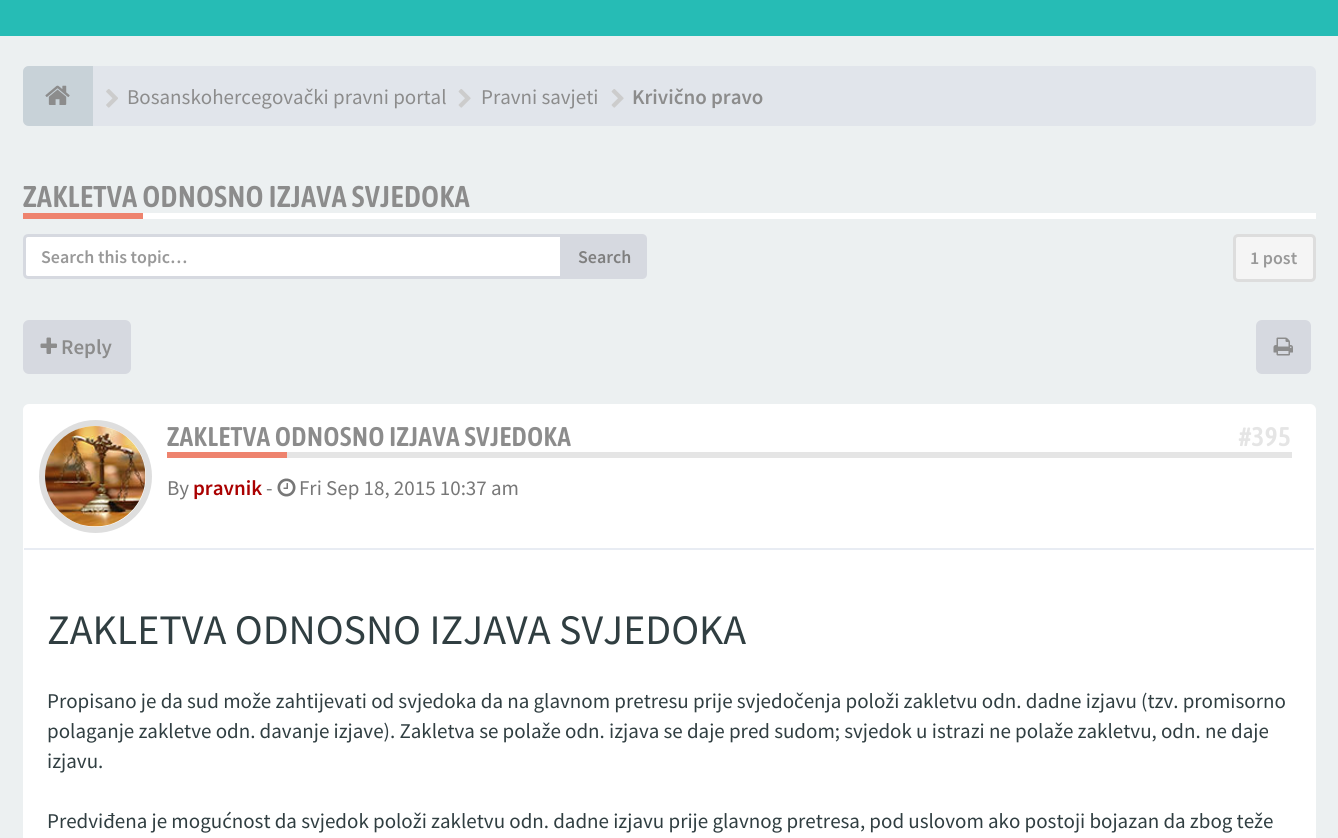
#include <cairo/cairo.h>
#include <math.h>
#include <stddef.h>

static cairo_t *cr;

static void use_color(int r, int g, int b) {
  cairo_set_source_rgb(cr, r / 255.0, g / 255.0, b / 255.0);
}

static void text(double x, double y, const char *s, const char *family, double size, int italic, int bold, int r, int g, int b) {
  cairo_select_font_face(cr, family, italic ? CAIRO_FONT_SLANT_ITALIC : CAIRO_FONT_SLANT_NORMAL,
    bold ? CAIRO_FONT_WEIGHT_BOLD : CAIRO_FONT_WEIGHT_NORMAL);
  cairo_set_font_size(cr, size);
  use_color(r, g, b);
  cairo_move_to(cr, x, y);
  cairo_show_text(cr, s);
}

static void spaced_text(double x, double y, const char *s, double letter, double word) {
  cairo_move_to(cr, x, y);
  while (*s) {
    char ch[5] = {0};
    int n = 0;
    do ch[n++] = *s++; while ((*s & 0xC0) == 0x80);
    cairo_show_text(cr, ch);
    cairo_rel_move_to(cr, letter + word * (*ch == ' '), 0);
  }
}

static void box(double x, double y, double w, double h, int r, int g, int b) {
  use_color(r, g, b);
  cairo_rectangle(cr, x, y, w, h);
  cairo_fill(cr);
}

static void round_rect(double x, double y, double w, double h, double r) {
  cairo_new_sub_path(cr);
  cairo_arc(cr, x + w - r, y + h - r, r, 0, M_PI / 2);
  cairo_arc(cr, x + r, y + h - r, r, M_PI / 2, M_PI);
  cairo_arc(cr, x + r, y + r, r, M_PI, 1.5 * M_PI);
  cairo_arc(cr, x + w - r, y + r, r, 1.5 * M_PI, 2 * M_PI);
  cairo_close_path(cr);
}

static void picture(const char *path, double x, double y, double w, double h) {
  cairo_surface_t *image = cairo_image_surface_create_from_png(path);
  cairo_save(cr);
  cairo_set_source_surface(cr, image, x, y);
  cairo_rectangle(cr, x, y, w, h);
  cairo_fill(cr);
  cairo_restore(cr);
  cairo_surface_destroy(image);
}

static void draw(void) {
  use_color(236, 240, 241);
  cairo_paint(cr);
  box(0, 0, 1338, 36, 38, 188, 181);
  use_color(225, 229, 235);
  round_rect(23, 66, 1293, 60, 6);
  cairo_fill(cr);
  use_color(200, 210, 216);
  cairo_new_path(cr);
  cairo_move_to(cr, 29, 66);
  cairo_line_to(cr, 93, 66);
  cairo_line_to(cr, 93, 126);
  cairo_line_to(cr, 29, 126);
  cairo_curve_to(cr, 25.5, 126, 23, 123.5, 23, 120);
  cairo_line_to(cr, 23, 72);
  cairo_curve_to(cr, 23, 68.5, 25.5, 66, 29, 66);
  cairo_close_path(cr);
  cairo_fill(cr);
  picture("img_01.png", 45, 85, 25, 20);
  picture("img_02.png", 106, 89, 12, 19);
  picture("img_03.png", 458, 89, 13, 19);
  picture("img_03.png", 611, 89, 13, 19);
  box(143, 213, 1173, 6, 255, 255, 255);
  box(23, 213, 120, 6, 238, 131, 110);
  use_color(255, 255, 255);
  cairo_new_path(cr);
  cairo_move_to(cr, 28, 235.5);
  cairo_line_to(cr, 561.5, 235.5);
  cairo_line_to(cr, 561.5, 277.5);
  cairo_line_to(cr, 28, 277.5);
  cairo_curve_to(cr, 26, 277.5, 24.5, 276, 24.5, 274);
  cairo_line_to(cr, 24.5, 239);
  cairo_curve_to(cr, 24.5, 237, 26, 235.5, 28, 235.5);
  cairo_close_path(cr);
  cairo_fill_preserve(cr);
  use_color(214, 217, 224);
  cairo_set_line_width(cr, 3);
  cairo_stroke(cr);
  cairo_new_path(cr);
  cairo_move_to(cr, 563, 234);
  cairo_line_to(cr, 642, 234);
  cairo_curve_to(cr, 645, 234, 647, 236, 647, 239);
  cairo_line_to(cr, 647, 274);
  cairo_curve_to(cr, 647, 277, 645, 279, 642, 279);
  cairo_line_to(cr, 563, 279);
  cairo_close_path(cr);
  cairo_fill(cr);
  use_color(245, 245, 245);
  round_rect(1234.5, 235.5, 80, 45, 3.5);
  cairo_fill_preserve(cr);
  use_color(221, 221, 221);
  cairo_stroke(cr);
  use_color(214, 217, 224);
  round_rect(23, 320, 108, 54, 6);
  cairo_fill(cr);
  picture("img_04.png", 40, 337, 17, 17);
  round_rect(1256, 320, 55, 54, 6);
  cairo_fill(cr);
  picture("img_05.png", 1273, 337, 20, 19);
  use_color(255, 255, 255);
  round_rect(23, 404, 1293, 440, 6);
  cairo_fill(cr);
  box(24, 548, 1290, 2, 232, 236, 243);
  cairo_arc(cr, 95.5, 476.5, 53.5, 0, 2 * M_PI);
  use_color(222, 222, 222);
  cairo_set_line_width(cr, 6);
  cairo_stroke(cr);
  picture("img_06.png", 45, 426, 101, 101);
  box(287, 452, 1005, 6, 229, 229, 229);
  box(167, 452, 120, 6, 238, 131, 110);
  picture("img_07.png", 277, 478, 19, 19);
  text(127, 104, "Bosanskohercegovački pravni portal", "Source Sans Pro", 21, 0, 0, 140, 140, 140);
  text(481, 104, "Pravni savjeti", "Source Sans Pro", 21, 0, 0, 140, 140, 140);
  text(632, 104, "Krivično pravo", "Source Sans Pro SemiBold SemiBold", 21, 0, 0, 140, 140, 140);
  cairo_select_font_face(cr, "Asap Condensed SemiBold", CAIRO_FONT_SLANT_NORMAL, CAIRO_FONT_WEIGHT_NORMAL);
  cairo_set_font_size(cr, 30);
  spaced_text(23, 207, "ZAKLETVA ODNOSNO IZJAVA SVJEDOKA", 0.6, 0);
  text(41, 263, "Search this topic…", "Source Sans Pro SemiBold SemiBold", 18, 0, 0, 153, 153, 153);
  text(578, 263, "Search", "Source Sans Pro SemiBold SemiBold", 18, 0, 0, 127, 127, 127);
  text(1250, 264, "1 post", "Source Sans Pro SemiBold SemiBold", 18, 0, 0, 153, 153, 153);
  text(61, 354, "Reply", "Source Sans Pro SemiBold SemiBold", 21, 0, 0, 140, 140, 140);
  cairo_select_font_face(cr, "Asap Condensed SemiBold", CAIRO_FONT_SLANT_NORMAL, CAIRO_FONT_WEIGHT_NORMAL);
  cairo_set_font_size(cr, 27);
  spaced_text(167, 446, "ZAKLETVA ODNOSNO IZJAVA SVJEDOKA", 0.6, 0);
  use_color(229, 229, 229);
  spaced_text(1239, 446, "#395", 0.6, 0);
  text(167, 495, "By", "Source Sans Pro", 21, 0, 0, 119, 119, 119);
  text(193, 495, "pravnik", "Source Sans Pro SemiBold SemiBold", 21, 0, 0, 170, 0, 0);
  text(266, 495, "-", "Source Sans Pro", 21, 0, 0, 119, 119, 119);
  text(299, 495, "Fri Sep 18, 2015 10:37 am", "Source Sans Pro", 21, 0, 0, 119, 119, 119);
  text(47, 644, "ZAKLETVA ODNOSNO IZJAVA SVJEDOKA", "Source Sans Pro", 42, 0, 0, 48, 62, 65);
  text(47, 708, "Propisano je da sud može zahtijevati od svjedoka da na glavnom pretresu prije svjedočenja položi zakletvu odn. dadne izjavu (tzv. promisorno", "Source Sans Pro", 21, 0, 0, 48, 62, 65);
  text(47, 738, "polaganje zakletve odn. davanje izjave). Zakletva se polaže odn. izjava se daje pred sudom; svjedok u istrazi ne polaže zakletvu, odn. ne daje", "Source Sans Pro", 21, 0, 0, 48, 62, 65);
  text(47, 768, "izjavu.", "Source Sans Pro", 21, 0, 0, 48, 62, 65);
  text(47, 828, "Predviđena je mogućnost da svjedok položi zakletvu odn. dadne izjavu prije glavnog pretresa, pod uslovom ako postoji bojazan da zbog teže", "Source Sans Pro", 21, 0, 0, 48, 62, 65);
}

int main(void) {
  cairo_surface_t *surface = cairo_image_surface_create(CAIRO_FORMAT_RGB24, 1338, 838);
  cr = cairo_create(surface);
  cairo_font_options_t *options = cairo_font_options_create();
  cairo_font_options_set_hint_metrics(options, CAIRO_HINT_METRICS_OFF);
  cairo_font_options_set_hint_style(options, CAIRO_HINT_STYLE_NONE);
  cairo_set_font_options(cr, options);
  cairo_set_miter_limit(cr, 4);
  draw();
  cairo_surface_write_to_png(surface, "out.png");
  cairo_font_options_destroy(options);
  cairo_destroy(cr);
  cairo_surface_destroy(surface);
  return 0;
}
